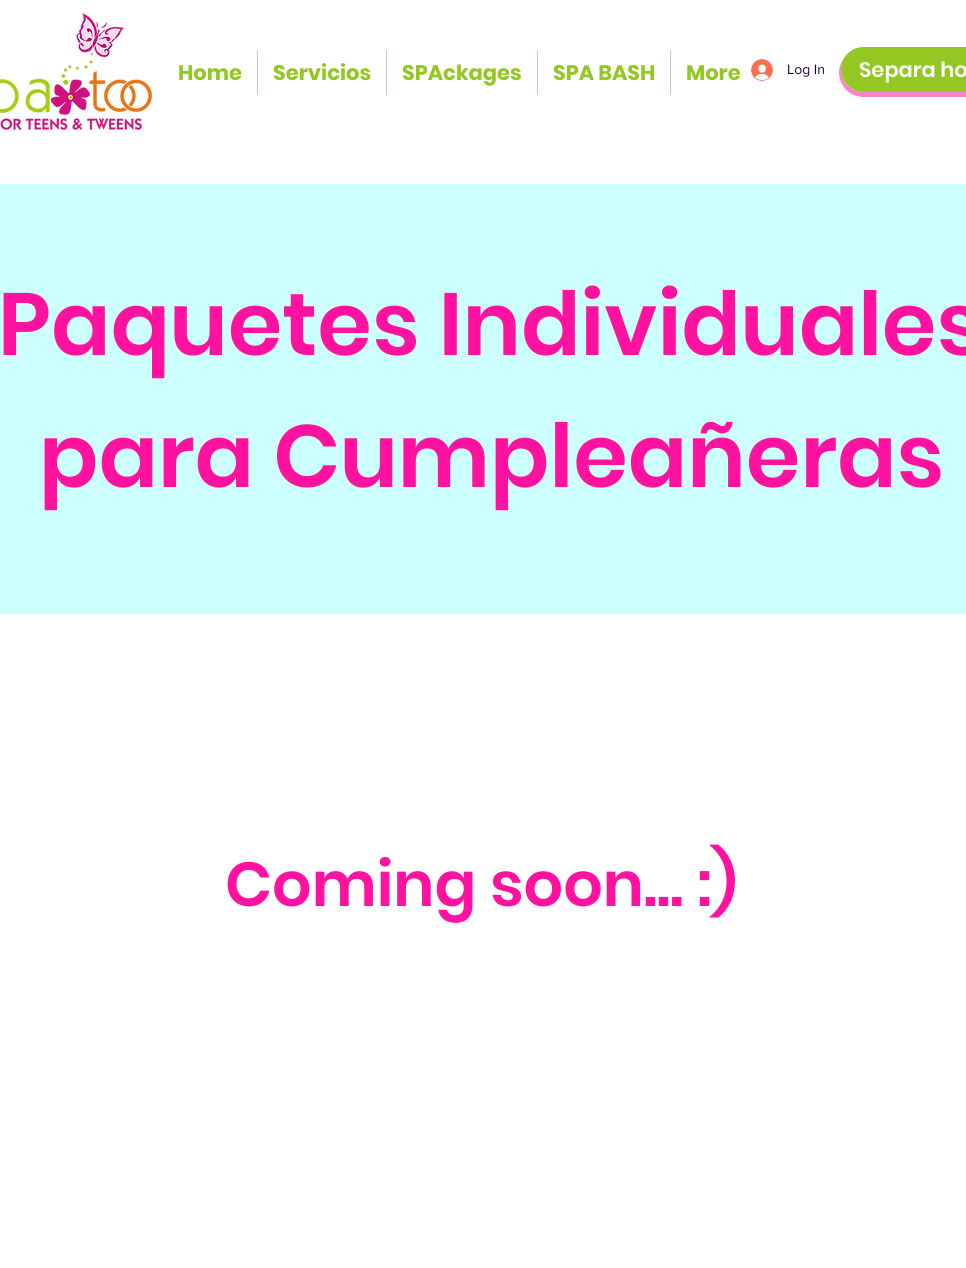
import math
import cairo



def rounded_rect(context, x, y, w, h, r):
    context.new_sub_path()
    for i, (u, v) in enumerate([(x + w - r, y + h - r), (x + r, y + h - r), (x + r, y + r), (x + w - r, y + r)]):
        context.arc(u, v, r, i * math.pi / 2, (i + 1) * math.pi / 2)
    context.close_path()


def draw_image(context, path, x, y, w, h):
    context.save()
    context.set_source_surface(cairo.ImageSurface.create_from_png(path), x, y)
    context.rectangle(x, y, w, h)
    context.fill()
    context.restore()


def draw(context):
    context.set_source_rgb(1, 1, 1)
    context.paint()
    draw_image(context, "images/1.png", 0, 13, 152, 118)
    context.set_source_rgb(216 / 255, 189 / 255, 226 / 255)
    context.rectangle(257, 50, 1, 45)
    context.fill()
    context.rectangle(386, 50, 1, 45)
    context.fill()
    context.rectangle(537, 50, 1, 45)
    context.fill()
    context.rectangle(670, 50, 1, 45)
    context.fill()
    draw_image(context, "images/2.png", 751, 59, 22, 22)
    context.set_source_rgb(1, 129 / 255, 205 / 255)
    context.new_path()
    context.move_to(846, 55)
    context.curve_to(842, 60, 839, 66, 839, 72)
    context.curve_to(839, 86, 850, 97, 864, 97)
    context.line_to(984, 97)
    context.curve_to(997, 97, 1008, 86, 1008, 72)
    context.curve_to(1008, 66, 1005, 60, 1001, 55)
    context.curve_to(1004, 59, 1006, 64, 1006, 70)
    context.curve_to(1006, 82, 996, 92, 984, 92)
    context.line_to(864, 92)
    context.curve_to(851, 92, 841, 82, 841, 70)
    context.curve_to(841, 64, 843, 59, 846, 55)
    context.close_path()
    context.fill()
    context.set_source_rgb(147 / 255, 199 / 255, 34 / 255)
    rounded_rect(context, 841, 47, 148, 45, 22.5)
    context.fill()
    context.set_source_rgb(205 / 255, 1, 1)
    context.rectangle(0, 184, 966, 430)
    context.fill()
    context.select_font_face("Poppins", cairo.FontSlant.NORMAL, cairo.FontWeight.BOLD)
    context.set_font_size(21)
    context.set_source_rgb(147 / 255, 199 / 255, 34 / 255)
    context.move_to(178, 80)
    context.show_text("Home")
    context.move_to(273, 80)
    context.show_text("Servicios")
    context.move_to(402, 80)
    context.show_text("SPAckages")
    context.move_to(553, 80)
    context.show_text("SPA BASH")
    context.move_to(686, 80)
    context.show_text("More")
    context.select_font_face("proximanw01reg")
    context.set_font_size(14)
    context.set_source_rgb(30 / 255, 0, 74 / 255)
    context.move_to(787, 74)
    context.show_text("Log In")
    context.select_font_face("Poppins SemiBold")
    context.set_font_size(21)
    context.set_source_rgb(1, 1, 1)
    context.move_to(859, 77)
    context.show_text("Separa ho")
    context.set_font_size(88)
    context.set_source_rgb(1, 18 / 255, 160 / 255)
    context.move_to(-2, 355)
    context.show_text("Paquetes Individuales")
    context.move_to(39, 487)
    context.show_text("para Cumpleañeras")
    context.set_font_size(62)
    context.move_to(225, 906)
    context.show_text("Coming soon... :)")


surface = cairo.ImageSurface(cairo.Format.RGB24, 966, 1268)
context = cairo.Context(surface)
options = cairo.FontOptions()
options.set_hint_metrics(cairo.HintMetrics.OFF)
options.set_hint_style(cairo.HintStyle.NONE)
context.set_font_options(options)
context.set_miter_limit(4)
draw(context)
surface.write_to_png("out.png")
